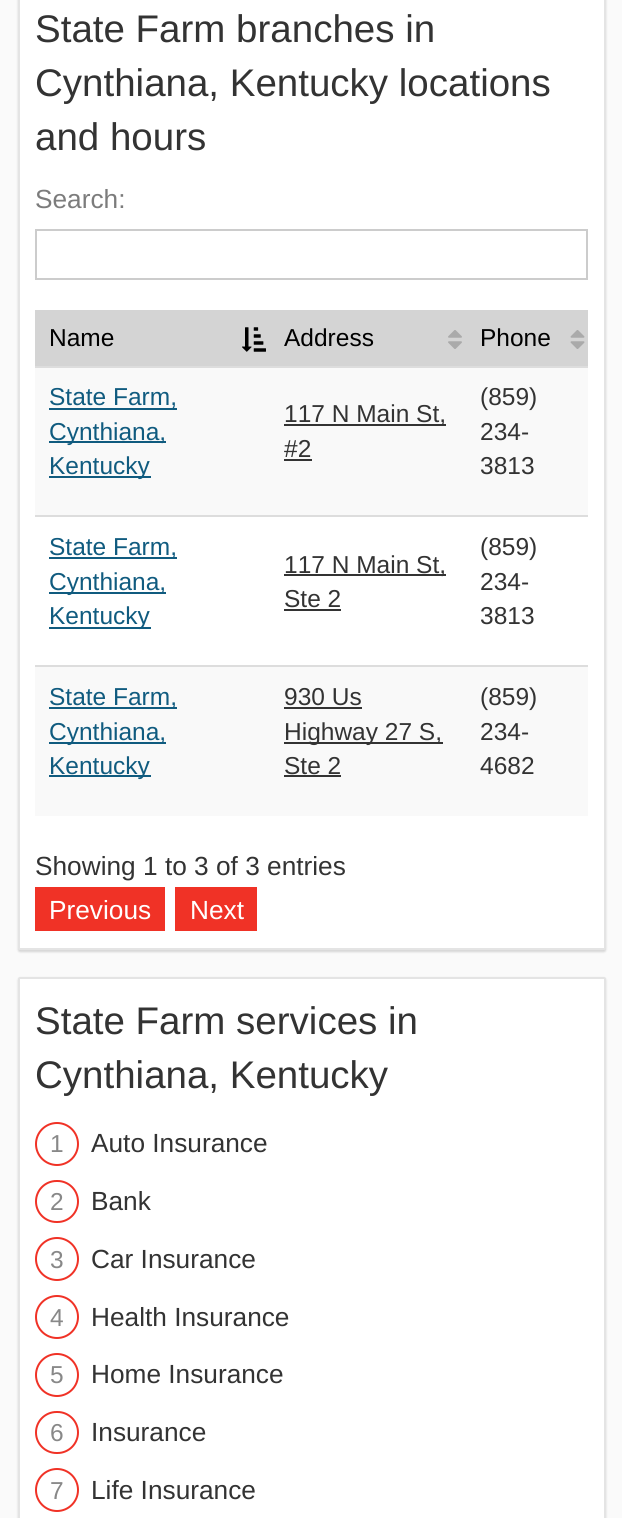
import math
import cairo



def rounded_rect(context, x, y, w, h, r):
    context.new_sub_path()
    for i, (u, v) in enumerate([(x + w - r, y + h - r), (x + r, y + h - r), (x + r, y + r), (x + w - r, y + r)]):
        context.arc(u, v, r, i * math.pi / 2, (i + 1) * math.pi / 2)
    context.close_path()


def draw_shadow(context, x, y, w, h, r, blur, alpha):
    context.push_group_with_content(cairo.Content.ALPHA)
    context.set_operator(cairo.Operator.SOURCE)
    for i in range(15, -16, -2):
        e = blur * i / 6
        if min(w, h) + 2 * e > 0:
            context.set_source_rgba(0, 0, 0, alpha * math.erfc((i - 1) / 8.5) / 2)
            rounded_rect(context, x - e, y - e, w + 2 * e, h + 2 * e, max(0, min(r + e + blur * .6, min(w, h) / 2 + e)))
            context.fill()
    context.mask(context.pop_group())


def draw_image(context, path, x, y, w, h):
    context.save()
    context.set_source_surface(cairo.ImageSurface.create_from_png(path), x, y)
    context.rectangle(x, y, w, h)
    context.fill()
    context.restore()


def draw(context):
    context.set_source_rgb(250 / 255, 250 / 255, 250 / 255)
    context.paint()
    context.set_source_rgb(0, 0, 0)
    draw_shadow(context, 18, -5, 588, 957, 2, 1, 0.15)
    context.set_source_rgb(1, 1, 1)
    rounded_rect(context, 19, -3, 586, 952, 1)
    context.fill_preserve()
    context.set_source_rgb(228 / 255, 228 / 255, 228 / 255)
    context.stroke()
    context.rectangle(36, 230, 551, 49)
    context.set_source_rgb(204 / 255, 204 / 255, 204 / 255)
    context.stroke()
    context.set_source_rgb(212 / 255, 212 / 255, 212 / 255)
    context.rectangle(35, 310, 553, 56)
    context.fill()
    draw_image(context, "images/1.png", 242, 327, 24, 25)
    draw_image(context, "images/2.png", 448, 330, 14, 19)
    draw_image(context, "images/3.png", 570, 330, 15, 19)
    context.set_source_rgb(249 / 255, 249 / 255, 249 / 255)
    context.rectangle(35, 368, 553, 147)
    context.fill()
    context.set_source_rgb(221 / 255, 221 / 255, 221 / 255)
    context.rectangle(35, 366, 553, 2)
    context.fill()
    context.set_source_rgb(16 / 255, 91 / 255, 127 / 255)
    context.rectangle(49, 408, 128, 2)
    context.fill()
    context.rectangle(49, 441, 117, 2)
    context.fill()
    context.rectangle(49, 476, 102, 2)
    context.fill()
    context.set_source_rgb(51 / 255, 51 / 255, 51 / 255)
    context.rectangle(284, 424, 162, 2)
    context.fill()
    context.rectangle(284, 459, 28, 2)
    context.fill()
    context.set_source_rgb(221 / 255, 221 / 255, 221 / 255)
    context.rectangle(35, 515, 553, 2)
    context.fill()
    context.set_source_rgb(16 / 255, 91 / 255, 127 / 255)
    context.rectangle(49, 557, 128, 2)
    context.fill()
    context.rectangle(49, 592, 117, 2)
    context.fill()
    context.rectangle(49, 627, 102, 2)
    context.fill()
    context.set_source_rgb(51 / 255, 51 / 255, 51 / 255)
    context.rectangle(284, 574, 162, 2)
    context.fill()
    context.rectangle(284, 609, 57, 2)
    context.fill()
    context.set_source_rgb(249 / 255, 249 / 255, 249 / 255)
    context.rectangle(35, 667, 553, 149)
    context.fill()
    context.set_source_rgb(221 / 255, 221 / 255, 221 / 255)
    context.rectangle(35, 665, 553, 2)
    context.fill()
    context.set_source_rgb(16 / 255, 91 / 255, 127 / 255)
    context.rectangle(49, 707, 128, 2)
    context.fill()
    context.rectangle(49, 742, 117, 2)
    context.fill()
    context.rectangle(49, 775, 102, 2)
    context.fill()
    context.set_source_rgb(51 / 255, 51 / 255, 51 / 255)
    context.rectangle(284, 707, 78, 2)
    context.fill()
    context.rectangle(284, 742, 159, 2)
    context.fill()
    context.rectangle(284, 775, 57, 2)
    context.fill()
    context.set_source_rgb(240 / 255, 50 / 255, 38 / 255)
    context.rectangle(35, 887, 130, 44)
    context.fill()
    context.rectangle(175, 887, 82, 44)
    context.fill()
    context.set_source_rgb(0, 0, 0)
    draw_shadow(context, 18, 978, 588, 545, 2, 1, 0.15)
    context.set_source_rgb(1, 1, 1)
    rounded_rect(context, 19, 978, 586, 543, 1)
    context.fill_preserve()
    context.set_source_rgb(228 / 255, 228 / 255, 228 / 255)
    context.stroke()
    context.arc(57, 1144, 21, 0, 2 * math.pi)
    context.set_source_rgb(240 / 255, 50 / 255, 38 / 255)
    context.stroke()
    rounded_rect(context, 36, 1181, 42, 41, 20.5)
    context.stroke()
    context.arc(57, 1259, 21, 0, 2 * math.pi)
    context.stroke()
    context.arc(57, 1317, 21, 0, 2 * math.pi)
    context.stroke()
    context.arc(57, 1375, 21, 0, 2 * math.pi)
    context.stroke()
    rounded_rect(context, 36, 1412, 42, 41, 20.5)
    context.stroke()
    context.arc(57, 1490, 21, 0, 2 * math.pi)
    context.stroke()
    context.select_font_face("Liberation Sans")
    context.set_font_size(38.5)
    context.set_source_rgb(51 / 255, 51 / 255, 51 / 255)
    context.move_to(35, 42)
    context.show_text("State Farm branches in")
    context.move_to(35, 96)
    context.show_text("Cynthiana, Kentucky locations")
    context.move_to(35, 150)
    context.show_text("and hours")
    context.set_font_size(26.25)
    context.set_source_rgb(124 / 255, 124 / 255, 124 / 255)
    context.move_to(35, 208)
    context.show_text("Search:")
    context.set_font_size(24.5)
    context.set_source_rgb(0, 0, 0)
    context.move_to(49, 346)
    context.show_text("Name")
    context.move_to(284, 346)
    context.show_text("Address")
    context.move_to(480, 346)
    context.show_text("Phone")
    context.set_source_rgb(16 / 255, 91 / 255, 127 / 255)
    context.move_to(49, 405)
    context.show_text("State Farm,")
    context.move_to(49, 440)
    context.show_text("Cynthiana,")
    context.move_to(49, 474)
    context.show_text("Kentucky")
    context.set_source_rgb(51 / 255, 51 / 255, 51 / 255)
    context.move_to(284, 422)
    context.show_text("117 N Main St,")
    context.move_to(284, 457)
    context.show_text("#2")
    context.move_to(480, 405)
    context.show_text("(859)")
    context.move_to(480, 440)
    context.show_text("234-")
    context.move_to(480, 474)
    context.show_text("3813")
    context.set_source_rgb(16 / 255, 91 / 255, 127 / 255)
    context.move_to(49, 555)
    context.show_text("State Farm,")
    context.move_to(49, 590)
    context.show_text("Cynthiana,")
    context.move_to(49, 624)
    context.show_text("Kentucky")
    context.set_source_rgb(51 / 255, 51 / 255, 51 / 255)
    context.move_to(284, 573)
    context.show_text("117 N Main St,")
    context.move_to(284, 607)
    context.show_text("Ste 2")
    context.move_to(480, 555)
    context.show_text("(859)")
    context.move_to(480, 590)
    context.show_text("234-")
    context.move_to(480, 624)
    context.show_text("3813")
    context.set_source_rgb(16 / 255, 91 / 255, 127 / 255)
    context.move_to(49, 705)
    context.show_text("State Farm,")
    context.move_to(49, 740)
    context.show_text("Cynthiana,")
    context.move_to(49, 774)
    context.show_text("Kentucky")
    context.set_source_rgb(51 / 255, 51 / 255, 51 / 255)
    context.move_to(284, 705)
    context.show_text("930 Us")
    context.move_to(284, 740)
    context.show_text("Highway 27 S,")
    context.move_to(284, 774)
    context.show_text("Ste 2")
    context.move_to(480, 705)
    context.show_text("(859)")
    context.move_to(480, 740)
    context.show_text("234-")
    context.move_to(480, 774)
    context.show_text("4682")
    context.set_font_size(26.25)
    context.move_to(35, 875)
    context.show_text("Showing 1 to 3 of 3 entries")
    context.set_source_rgb(1, 1, 1)
    context.move_to(49, 919)
    context.show_text("Previous")
    context.move_to(190, 919)
    context.show_text("Next")
    context.set_font_size(38.5)
    context.set_source_rgb(51 / 255, 51 / 255, 51 / 255)
    context.move_to(35, 1034)
    context.show_text("State Farm services in")
    context.move_to(35, 1088)
    context.show_text("Cynthiana, Kentucky")
    context.set_font_size(24.5)
    context.set_source_rgb(136 / 255, 136 / 255, 136 / 255)
    context.move_to(50, 1152)
    context.show_text("1")
    context.set_font_size(26.25)
    context.set_source_rgb(51 / 255, 51 / 255, 51 / 255)
    context.move_to(91, 1152)
    context.show_text("Auto Insurance")
    context.set_font_size(24.5)
    context.set_source_rgb(136 / 255, 136 / 255, 136 / 255)
    context.move_to(50, 1210)
    context.show_text("2")
    context.set_font_size(26.25)
    context.set_source_rgb(51 / 255, 51 / 255, 51 / 255)
    context.move_to(91, 1210)
    context.show_text("Bank")
    context.set_font_size(24.5)
    context.set_source_rgb(136 / 255, 136 / 255, 136 / 255)
    context.move_to(50, 1268)
    context.show_text("3")
    context.set_font_size(26.25)
    context.set_source_rgb(51 / 255, 51 / 255, 51 / 255)
    context.move_to(91, 1268)
    context.show_text("Car Insurance")
    context.set_font_size(24.5)
    context.set_source_rgb(136 / 255, 136 / 255, 136 / 255)
    context.move_to(50, 1326)
    context.show_text("4")
    context.set_font_size(26.25)
    context.set_source_rgb(51 / 255, 51 / 255, 51 / 255)
    context.move_to(91, 1326)
    context.show_text("Health Insurance")
    context.set_font_size(24.5)
    context.set_source_rgb(136 / 255, 136 / 255, 136 / 255)
    context.move_to(50, 1383)
    context.show_text("5")
    context.set_font_size(26.25)
    context.set_source_rgb(51 / 255, 51 / 255, 51 / 255)
    context.move_to(91, 1383)
    context.show_text("Home Insurance")
    context.set_font_size(24.5)
    context.set_source_rgb(136 / 255, 136 / 255, 136 / 255)
    context.move_to(50, 1441)
    context.show_text("6")
    context.set_font_size(26.25)
    context.set_source_rgb(51 / 255, 51 / 255, 51 / 255)
    context.move_to(91, 1441)
    context.show_text("Insurance")
    context.set_font_size(24.5)
    context.set_source_rgb(136 / 255, 136 / 255, 136 / 255)
    context.move_to(50, 1499)
    context.show_text("7")
    context.set_font_size(26.25)
    context.set_source_rgb(51 / 255, 51 / 255, 51 / 255)
    context.move_to(91, 1499)
    context.show_text("Life Insurance")


surface = cairo.ImageSurface(cairo.Format.RGB24, 622, 1518)
context = cairo.Context(surface)
options = cairo.FontOptions()
options.set_hint_metrics(cairo.HintMetrics.OFF)
options.set_hint_style(cairo.HintStyle.NONE)
context.set_font_options(options)
context.set_miter_limit(4)
draw(context)
surface.write_to_png("out.png")
